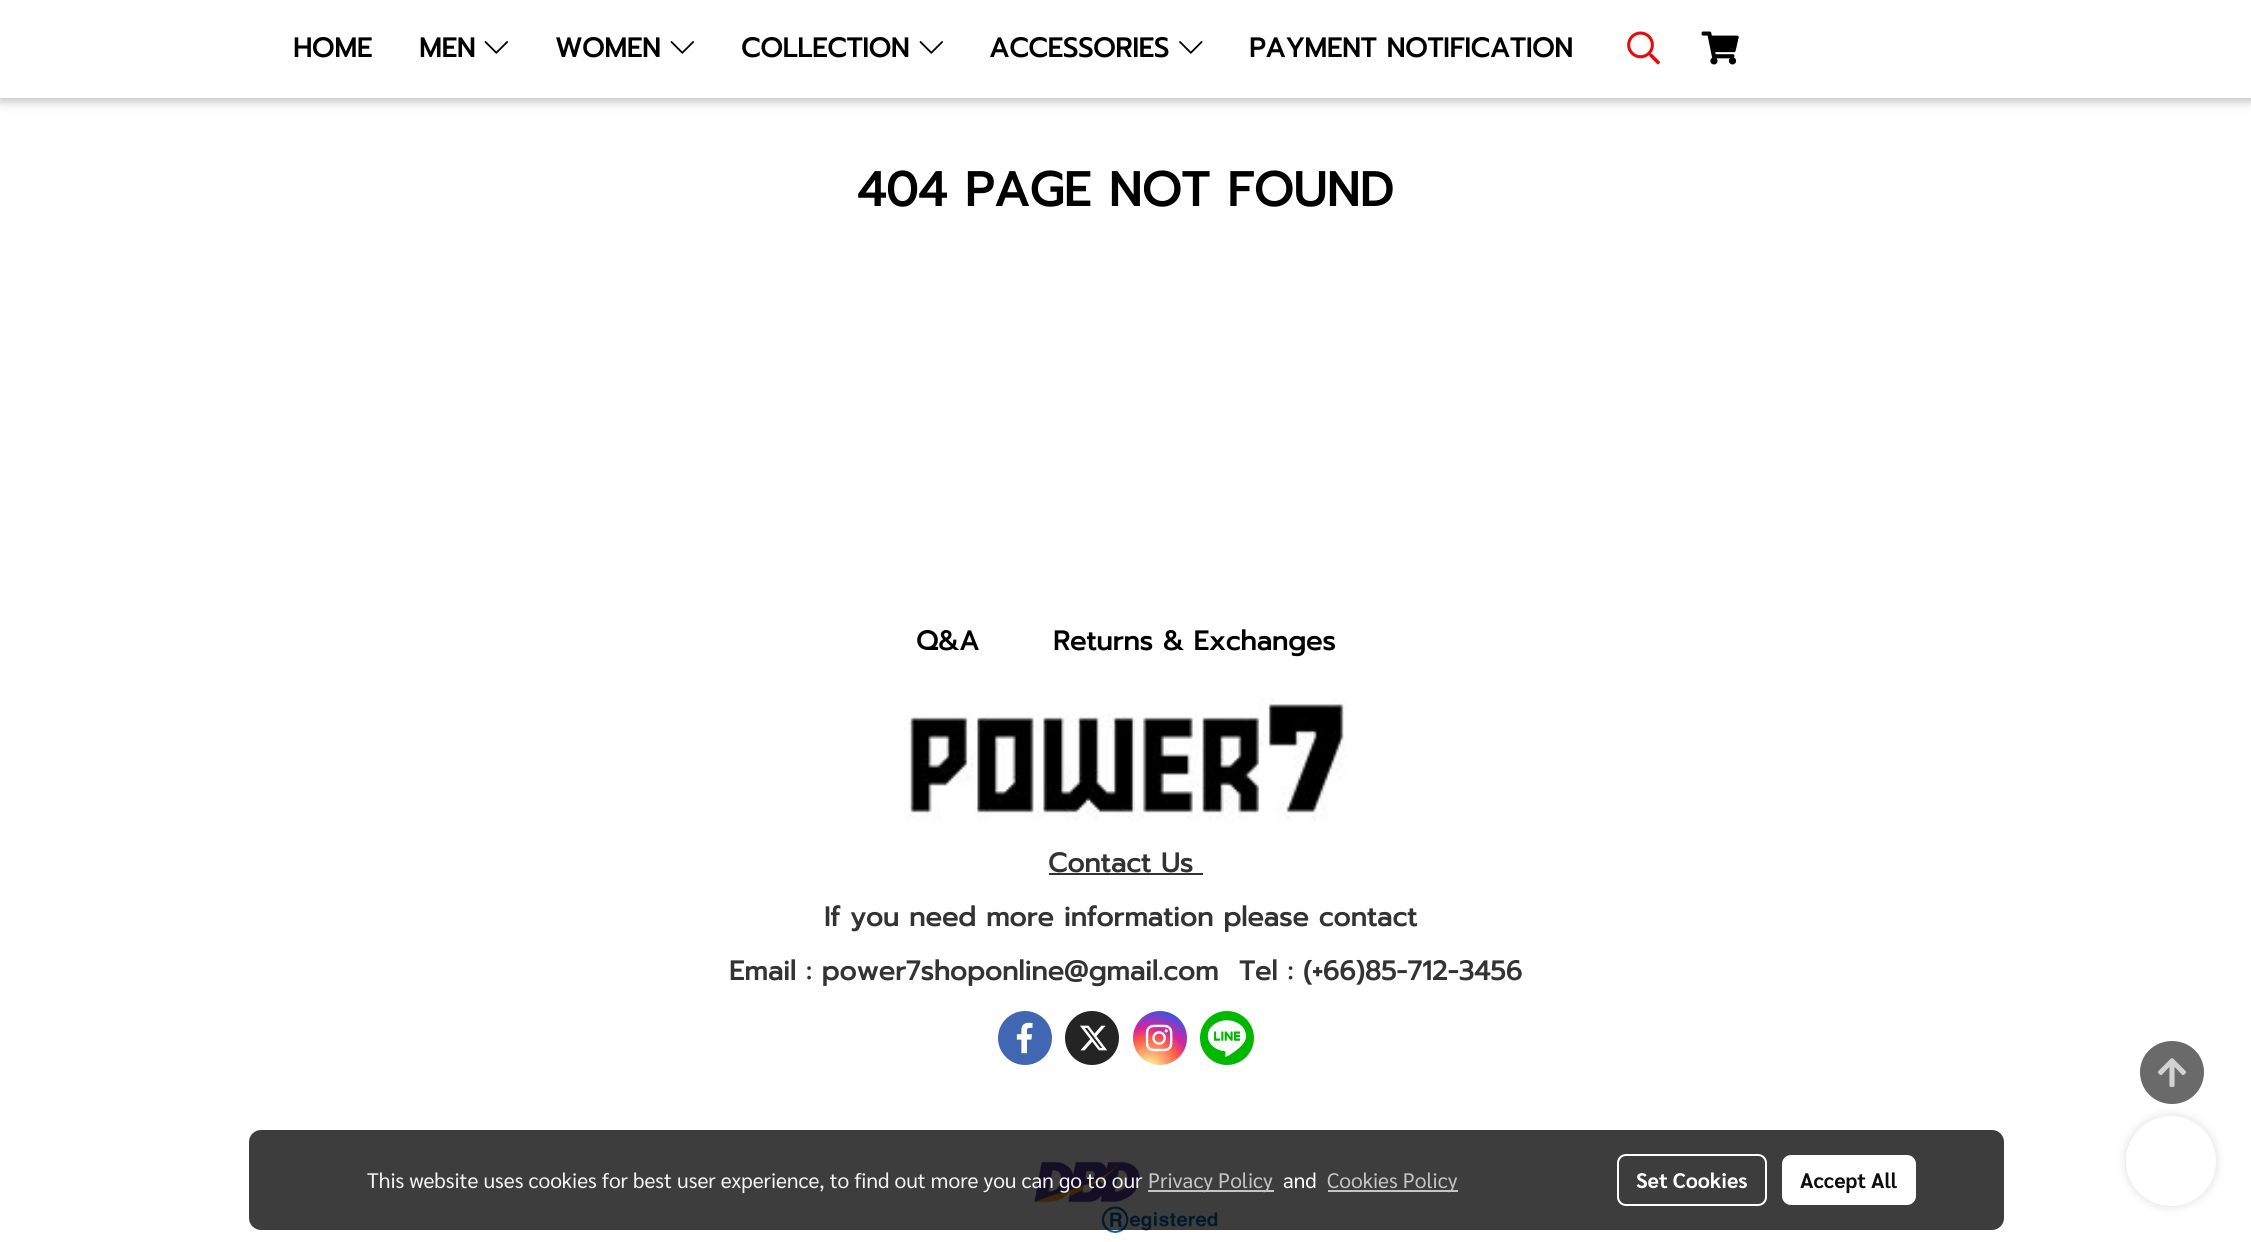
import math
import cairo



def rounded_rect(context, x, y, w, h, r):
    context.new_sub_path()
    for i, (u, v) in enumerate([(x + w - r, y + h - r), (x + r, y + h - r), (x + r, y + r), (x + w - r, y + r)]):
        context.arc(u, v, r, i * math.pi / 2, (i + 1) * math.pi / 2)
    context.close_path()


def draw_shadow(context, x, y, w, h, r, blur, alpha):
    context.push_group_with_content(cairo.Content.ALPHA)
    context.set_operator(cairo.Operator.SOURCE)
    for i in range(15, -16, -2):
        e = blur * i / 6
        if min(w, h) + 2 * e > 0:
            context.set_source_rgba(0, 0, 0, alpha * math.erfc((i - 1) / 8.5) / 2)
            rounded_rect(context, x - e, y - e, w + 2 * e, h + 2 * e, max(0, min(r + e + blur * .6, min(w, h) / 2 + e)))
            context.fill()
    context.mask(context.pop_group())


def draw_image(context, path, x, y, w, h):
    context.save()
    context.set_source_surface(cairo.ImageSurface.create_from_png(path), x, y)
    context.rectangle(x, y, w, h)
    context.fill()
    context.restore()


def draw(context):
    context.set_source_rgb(1, 1, 1)
    context.paint()
    context.set_source_rgb(0, 0, 0)
    draw_shadow(context, 0, 3, 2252, 98, 0, 7.5, 0.12)
    draw_shadow(context, 0, 3, 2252, 98, 0, 4, 0.16)
    context.set_source_rgb(1, 1, 1)
    context.rectangle(0, 0, 2251, 98)
    context.fill()
    draw_image(context, "images/1.png", 484, 41, 24, 13)
    draw_image(context, "images/1.png", 670, 41, 24, 13)
    draw_image(context, "images/1.png", 919, 41, 24, 13)
    draw_image(context, "images/2.png", 1179, 41, 24, 13)
    draw_image(context, "images/3.png", 1627, 31, 34, 34)
    draw_image(context, "images/4.png", 1701, 31, 38, 34)
    draw_image(context, "images/5.png", 904, 698, 443, 123)
    context.set_source_rgb(51 / 255, 51 / 255, 51 / 255)
    context.rectangle(1049, 873, 154, 2)
    context.fill()
    context.set_source_rgb(66 / 255, 103 / 255, 178 / 255)
    context.arc(1025, 1038, 27, 0, 2 * math.pi)
    context.fill()
    draw_image(context, "images/6.png", 1016, 1022, 17, 32)
    context.set_source_rgb(36 / 255, 36 / 255, 36 / 255)
    context.arc(1092, 1038, 27, 0, 2 * math.pi)
    context.fill()
    draw_image(context, "images/7.png", 1080, 1025, 28, 26)
    gradient = cairo.RadialGradient(1149, 1069, 0, 1149, 1069, 69)
    gradient.add_color_stop_rgba(0, 253 / 255, 244 / 255, 151 / 255, 1)
    gradient.add_color_stop_rgba(0.05, 253 / 255, 244 / 255, 151 / 255, 1)
    gradient.add_color_stop_rgba(0.45, 253 / 255, 89 / 255, 73 / 255, 1)
    gradient.add_color_stop_rgba(0.6, 214 / 255, 36 / 255, 159 / 255, 1)
    gradient.add_color_stop_rgba(0.9, 40 / 255, 90 / 255, 235 / 255, 1)
    context.set_source(gradient)
    context.arc(1160, 1038, 27, 0, 2 * math.pi)
    context.fill()
    draw_image(context, "images/8.png", 1145, 1024, 28, 28)
    context.set_source_rgb(0, 184 / 255, 0)
    context.arc(1227, 1038, 27, 0, 2 * math.pi)
    context.fill()
    draw_image(context, "images/9.png", 1207, 1011, 39, 54)
    draw_image(context, "images/10.png", 1034, 1161, 184, 72)
    context.set_source_rgb(0, 0, 0)
    draw_shadow(context, 2126, 1116, 90, 90, 45, 5, 0.14)
    context.set_source_rgb(107 / 255, 106 / 255, 106 / 255)
    context.new_path()
    context.move_to(2172, 1041)
    context.curve_to(2154, 1041, 2140, 1055, 2140, 1072)
    context.curve_to(2140, 1090, 2154, 1104, 2172, 1104)
    context.curve_to(2190, 1104, 2204, 1090, 2204, 1072)
    context.curve_to(2204, 1055, 2190, 1041, 2172, 1041)
    context.close_path()
    context.fill()
    draw_image(context, "images/11.png", 2158, 1058, 28, 29)
    context.set_source_rgba(0, 0, 0, 0.76)
    rounded_rect(context, 249, 1130, 1755, 100, 12)
    context.fill()
    context.set_source_rgb(197 / 255, 197 / 255, 197 / 255)
    context.rectangle(1148, 1190, 126, 2)
    context.fill()
    context.rectangle(1328, 1190, 130, 2)
    context.fill()
    rounded_rect(context, 1618, 1155, 148, 50, 8)
    context.set_source_rgb(1, 1, 1)
    context.stroke()
    rounded_rect(context, 1782, 1155, 134, 50, 9)
    context.fill()
    context.arc(2171, 1161, 45, 0, 2 * math.pi)
    context.fill()
    context.select_font_face("Prompt", cairo.FontSlant.NORMAL, cairo.FontWeight.BOLD)
    context.set_font_size(27)
    context.set_source_rgb(0, 0, 0)
    context.move_to(293, 57)
    context.show_text("HOME")
    context.move_to(419, 57)
    context.show_text("MEN")
    context.move_to(555, 57)
    context.show_text("WOMEN")
    context.move_to(741, 57)
    context.show_text("COLLECTION")
    context.move_to(989, 57)
    context.show_text("ACCESSORIES")
    context.move_to(1249, 57)
    context.show_text("PAYMENT NOTIFICATION")
    context.set_font_size(48)
    context.move_to(857, 206)
    context.show_text("404 PAGE NOT FOUND")
    context.set_font_size(27)
    context.move_to(916, 650)
    context.show_text("Q&A")
    context.move_to(1053, 650)
    context.show_text("Returns & Exchanges")
    context.set_source_rgb(51 / 255, 51 / 255, 51 / 255)
    context.move_to(1048, 872)
    context.show_text("Contact Us")
    context.move_to(824, 926)
    context.show_text("If you need more information please contact")
    context.move_to(729, 980)
    context.show_text("Email : power7shoponline@gmail.com")
    context.move_to(1239, 980)
    context.show_text("Tel : (+66)85-712-3456")
    context.select_font_face("Sarabun")
    context.set_font_size(21)
    context.set_source_rgb(245 / 255, 245 / 255, 245 / 255)
    context.move_to(367, 1188)
    context.show_text("This website uses cookies for best user experience, to find out more you can go to our")
    context.set_source_rgb(197 / 255, 197 / 255, 197 / 255)
    context.move_to(1148, 1188)
    context.show_text("Privacy Policy")
    context.set_source_rgb(1, 1, 1)
    context.move_to(1283, 1188)
    context.show_text("and")
    context.set_source_rgb(197 / 255, 197 / 255, 197 / 255)
    context.move_to(1327, 1188)
    context.show_text("Cookies Policy")
    context.select_font_face("Sarabun", cairo.FontSlant.NORMAL, cairo.FontWeight.BOLD)
    context.set_source_rgb(1, 1, 1)
    context.move_to(1636, 1188)
    context.show_text("Set Cookies")
    context.set_source_rgb(13 / 255, 13 / 255, 13 / 255)
    context.move_to(1800, 1188)
    context.show_text("Accept All")


surface = cairo.ImageSurface(cairo.Format.RGB24, 2251, 1242)
context = cairo.Context(surface)
options = cairo.FontOptions()
options.set_hint_metrics(cairo.HintMetrics.OFF)
options.set_hint_style(cairo.HintStyle.NONE)
context.set_font_options(options)
context.set_miter_limit(4)
draw(context)
surface.write_to_png("out.png")
